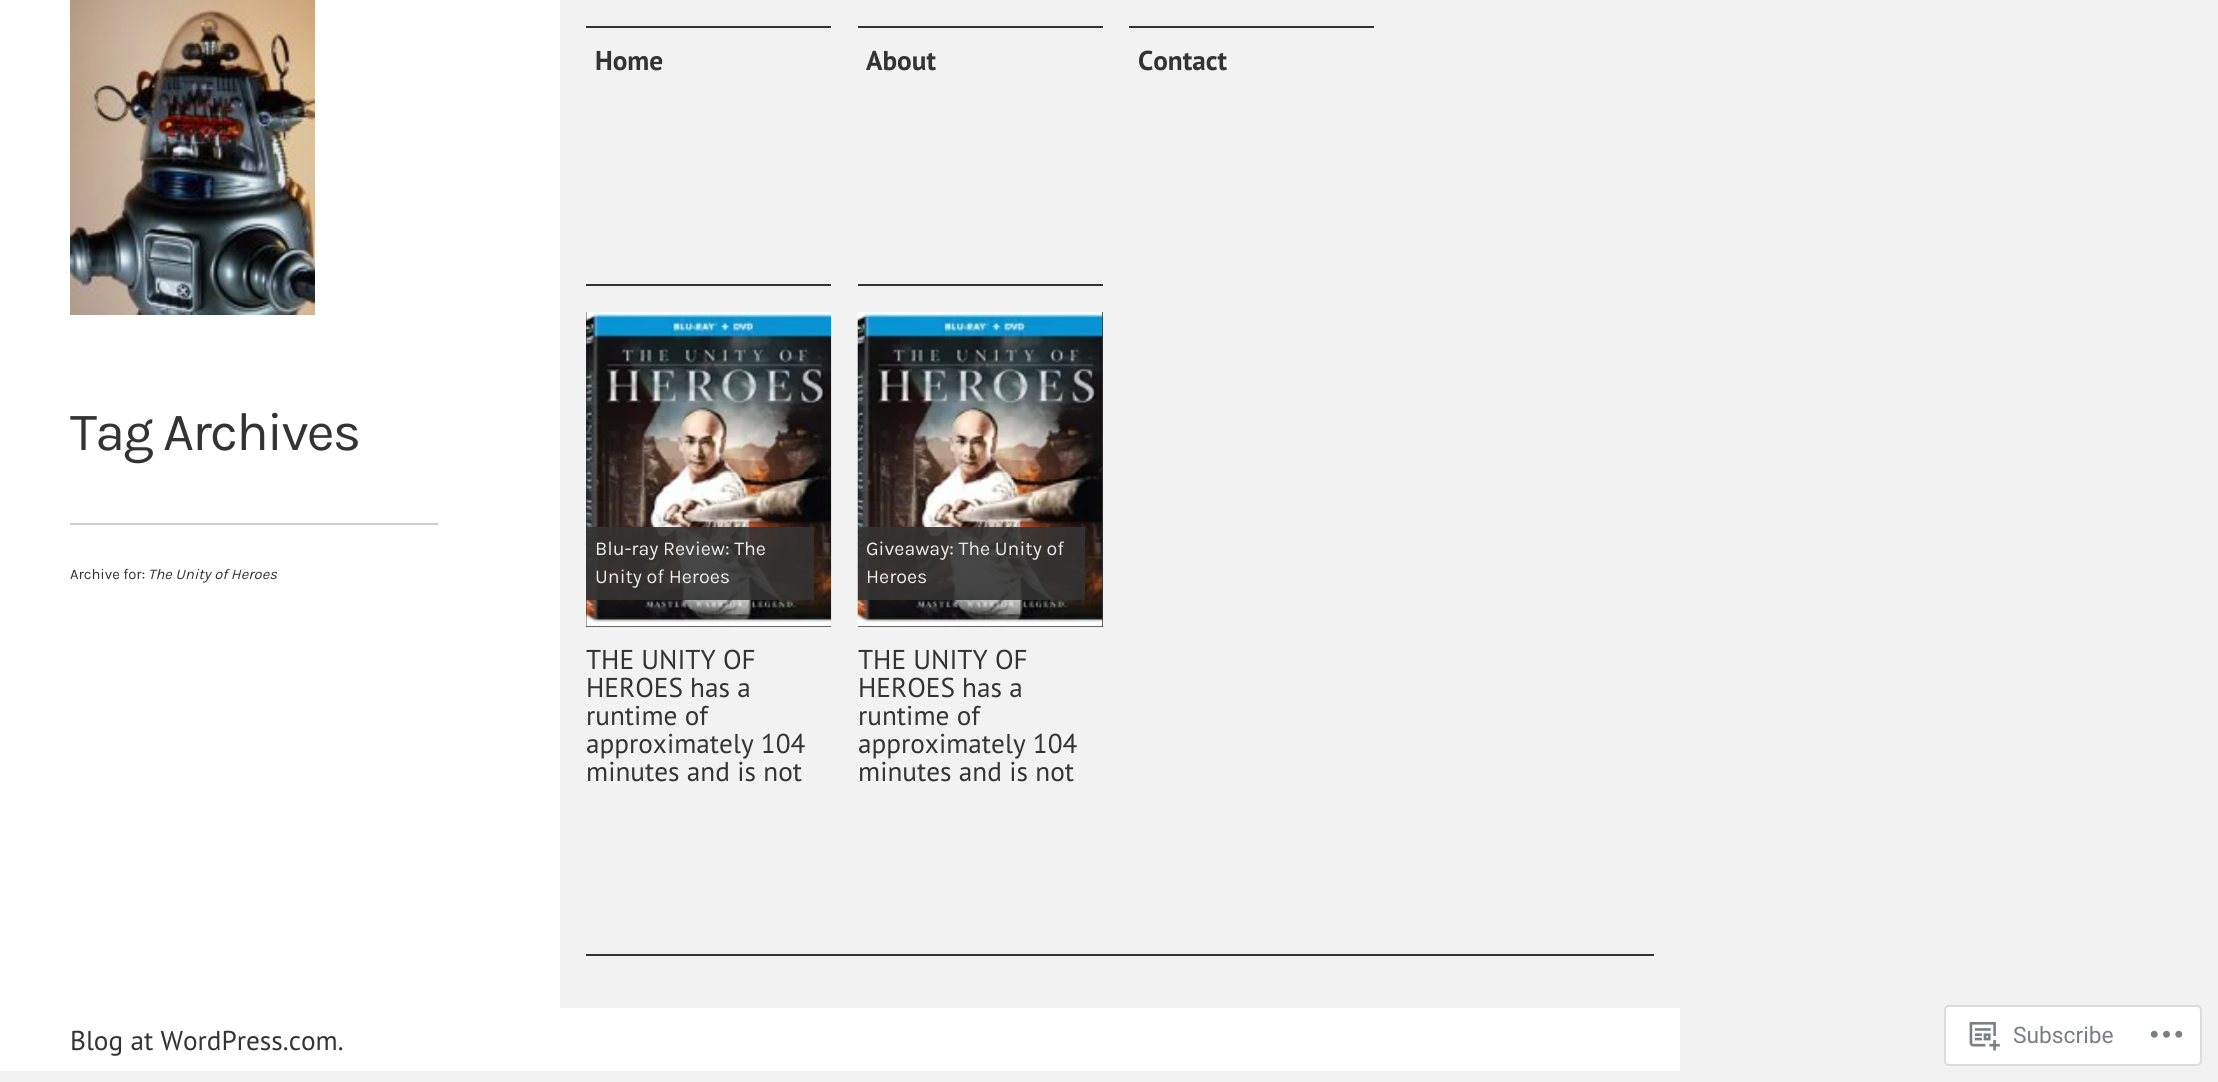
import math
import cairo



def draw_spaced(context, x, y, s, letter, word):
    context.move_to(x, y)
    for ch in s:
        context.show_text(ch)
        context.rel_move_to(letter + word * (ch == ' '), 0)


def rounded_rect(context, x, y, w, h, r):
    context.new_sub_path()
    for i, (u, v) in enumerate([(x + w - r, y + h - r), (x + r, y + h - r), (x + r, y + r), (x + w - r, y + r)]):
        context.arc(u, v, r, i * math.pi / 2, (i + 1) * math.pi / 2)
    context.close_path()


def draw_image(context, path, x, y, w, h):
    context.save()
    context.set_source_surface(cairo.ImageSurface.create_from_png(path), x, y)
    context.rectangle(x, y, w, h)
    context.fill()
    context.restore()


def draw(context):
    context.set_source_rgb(242 / 255, 242 / 255, 242 / 255)
    context.paint()
    context.set_source_rgb(1, 1, 1)
    context.rectangle(0, 0, 560, 1008)
    context.fill()
    draw_image(context, "images/1.png", 70, 0, 245, 315)
    context.set_source_rgb(204 / 255, 204 / 255, 204 / 255)
    context.rectangle(70, 523, 368, 2)
    context.fill()
    context.set_source_rgb(51 / 255, 51 / 255, 51 / 255)
    context.rectangle(586, 26, 245, 2)
    context.fill()
    context.rectangle(858, 26, 245, 2)
    context.fill()
    context.rectangle(1129, 26, 245, 2)
    context.fill()
    context.rectangle(586, 284, 245, 2)
    context.fill()
    context.rectangle(586, 312, 245, 315)
    context.fill()
    draw_image(context, "images/2.png", 586, 312, 246, 315)
    context.set_source_rgba(51 / 255, 51 / 255, 51 / 255, 0.9)
    context.rectangle(586, 527, 228, 73)
    context.fill()
    context.set_source_rgb(51 / 255, 51 / 255, 51 / 255)
    context.rectangle(858, 284, 245, 2)
    context.fill()
    context.rectangle(858, 312, 245, 315)
    context.fill()
    draw_image(context, "images/3.png", 857, 312, 246, 315)
    context.set_source_rgba(51 / 255, 51 / 255, 51 / 255, 0.9)
    context.rectangle(858, 527, 227, 73)
    context.fill()
    context.set_source_rgb(51 / 255, 51 / 255, 51 / 255)
    context.rectangle(586, 954, 1068, 2)
    context.fill()
    context.set_source_rgb(1, 1, 1)
    context.rectangle(0, 1008, 1680, 63)
    context.fill()
    rounded_rect(context, 1945, 1006, 256, 59, 4)
    context.fill_preserve()
    context.set_source_rgb(220 / 255, 220 / 255, 222 / 255)
    context.stroke()
    draw_image(context, "images/4.png", 1969, 1022, 31, 29)
    draw_image(context, "images/5.png", 2150, 1030, 33, 8)
    context.select_font_face("Karla")
    context.set_font_size(54)
    context.set_source_rgb(51 / 255, 51 / 255, 51 / 255)
    draw_spaced(context, 70, 450, "Tag Archives", -1.75, 0)
    context.set_font_size(14.75)
    context.move_to(70, 579)
    context.show_text("Archive for:")
    context.select_font_face("Karla", cairo.FontSlant.ITALIC)
    context.move_to(148, 579)
    context.show_text("The Unity of Heroes")
    context.select_font_face("PT Sans", cairo.FontSlant.NORMAL, cairo.FontWeight.BOLD)
    context.set_font_size(27.25)
    context.move_to(595, 70)
    context.show_text("Home")
    context.move_to(866, 70)
    context.show_text("About")
    context.move_to(1138, 70)
    context.show_text("Contact")
    context.select_font_face("Karla")
    context.set_font_size(19.6)
    context.set_source_rgb(235 / 255, 235 / 255, 235 / 255)
    context.move_to(595, 555)
    context.show_text("Blu-ray Review: The")
    context.move_to(595, 583)
    context.show_text("Unity of Heroes")
    context.select_font_face("PT Sans")
    context.set_font_size(27.25)
    context.set_source_rgb(51 / 255, 51 / 255, 51 / 255)
    context.move_to(586, 669)
    context.show_text("THE UNITY OF")
    context.move_to(586, 697)
    context.show_text("HEROES has a")
    context.move_to(586, 725)
    context.show_text("runtime of")
    context.move_to(586, 753)
    context.show_text("approximately 104")
    context.move_to(586, 781)
    context.show_text("minutes and is not")
    context.select_font_face("Karla")
    context.set_font_size(19.6)
    context.set_source_rgb(235 / 255, 235 / 255, 235 / 255)
    context.move_to(866, 555)
    context.show_text("Giveaway: The Unity of")
    context.move_to(866, 583)
    context.show_text("Heroes")
    context.select_font_face("PT Sans")
    context.set_font_size(27.25)
    context.set_source_rgb(51 / 255, 51 / 255, 51 / 255)
    context.move_to(858, 669)
    context.show_text("THE UNITY OF")
    context.move_to(858, 697)
    context.show_text("HEROES has a")
    context.move_to(858, 725)
    context.show_text("runtime of")
    context.move_to(858, 753)
    context.show_text("approximately 104")
    context.move_to(858, 781)
    context.show_text("minutes and is not")
    context.move_to(70, 1050)
    context.show_text("Blog at WordPress.com.")
    context.select_font_face("Roboto")
    context.set_font_size(22.75)
    context.set_source_rgb(122 / 255, 126 / 255, 132 / 255)
    context.move_to(2013, 1043)
    context.show_text("Subscribe")


surface = cairo.ImageSurface(cairo.Format.RGB24, 2218, 1082)
context = cairo.Context(surface)
options = cairo.FontOptions()
options.set_hint_metrics(cairo.HintMetrics.OFF)
options.set_hint_style(cairo.HintStyle.NONE)
context.set_font_options(options)
context.set_miter_limit(4)
draw(context)
surface.write_to_png("out.png")
